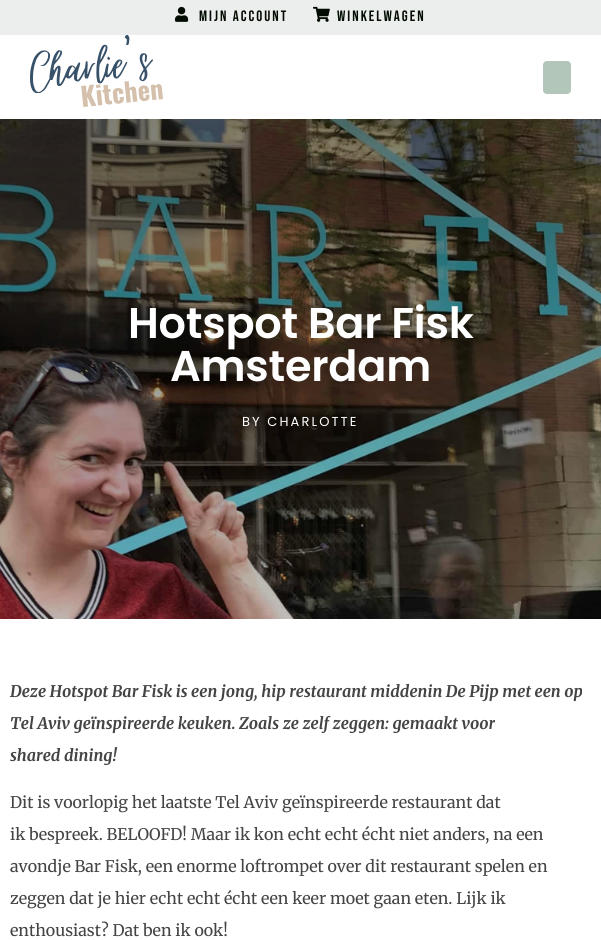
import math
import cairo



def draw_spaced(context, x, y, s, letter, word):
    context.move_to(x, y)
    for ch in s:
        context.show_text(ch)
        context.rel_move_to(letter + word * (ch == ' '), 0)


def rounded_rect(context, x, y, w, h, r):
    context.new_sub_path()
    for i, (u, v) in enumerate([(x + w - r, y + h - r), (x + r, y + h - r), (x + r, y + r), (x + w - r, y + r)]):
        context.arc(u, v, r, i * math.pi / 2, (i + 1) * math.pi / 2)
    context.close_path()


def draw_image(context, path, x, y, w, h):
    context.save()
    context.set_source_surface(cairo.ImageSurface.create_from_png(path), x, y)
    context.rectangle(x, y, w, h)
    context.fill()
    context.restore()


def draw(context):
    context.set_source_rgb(1, 1, 1)
    context.paint()
    context.set_source_rgb(236 / 255, 237 / 255, 237 / 255)
    context.rectangle(0, 0, 601, 35)
    context.fill()
    draw_image(context, "images/1.png", 175, 6, 14, 16)
    draw_image(context, "images/2.png", 313, 6, 17, 16)
    draw_image(context, "images/3.png", 30, 35, 133, 72)
    context.set_source_rgb(179 / 255, 198 / 255, 186 / 255)
    rounded_rect(context, 543, 61, 28, 33, 4)
    context.fill()
    draw_image(context, "images/4.png", 0, 119, 601, 500)
    context.select_font_face("Bebas Neue")
    context.set_font_size(15)
    context.set_source_rgb(3 / 255, 12 / 255, 2 / 255)
    draw_spaced(context, 199, 21, "MIJN ACCOUNT", 2, 0)
    draw_spaced(context, 337, 21, "WINKELWAGEN", 2, 0)
    context.select_font_face("Poppins SemiBold")
    context.set_font_size(43)
    context.set_source_rgb(1, 1, 1)
    draw_spaced(context, 128, 338, "Hotspot Bar Fisk", -0.25, 0)
    draw_spaced(context, 170, 381, "Amsterdam", -0.25, 0)
    context.select_font_face("Poppins")
    context.set_font_size(13)
    draw_spaced(context, 242, 426, "BY CHARLOTTE", 2.1, 0)
    context.select_font_face("Merriweather", cairo.FontSlant.ITALIC, cairo.FontWeight.BOLD)
    context.set_font_size(16)
    context.set_source_rgb(68 / 255, 68 / 255, 68 / 255)
    context.move_to(10, 697)
    context.show_text("Deze Hotspot Bar Fisk is een jong, hip restaurant middenin De Pijp met een op")
    context.move_to(10, 729)
    context.show_text("Tel Aviv geïnspireerde keuken. Zoals ze zelf zeggen: gemaakt voor")
    context.move_to(10, 761)
    context.show_text("shared dining!")
    context.select_font_face("Merriweather")
    context.move_to(10, 808)
    context.show_text("Dit is voorlopig het laatste Tel Aviv geïnspireerde restaurant dat")
    context.move_to(10, 840)
    context.show_text("ik bespreek. BELOOFD! Maar ik kon echt echt écht niet anders, na een")
    context.move_to(10, 872)
    context.show_text("avondje Bar Fisk, een enorme loftrompet over dit restaurant spelen en")
    context.move_to(10, 904)
    context.show_text("zeggen dat je hier echt echt écht een keer moet gaan eten. Lijk ik")
    context.move_to(10, 936)
    context.show_text("enthousiast? Dat ben ik ook!")


surface = cairo.ImageSurface(cairo.Format.RGB24, 601, 940)
context = cairo.Context(surface)
options = cairo.FontOptions()
options.set_hint_metrics(cairo.HintMetrics.OFF)
options.set_hint_style(cairo.HintStyle.NONE)
context.set_font_options(options)
context.set_miter_limit(4)
draw(context)
surface.write_to_png("out.png")
